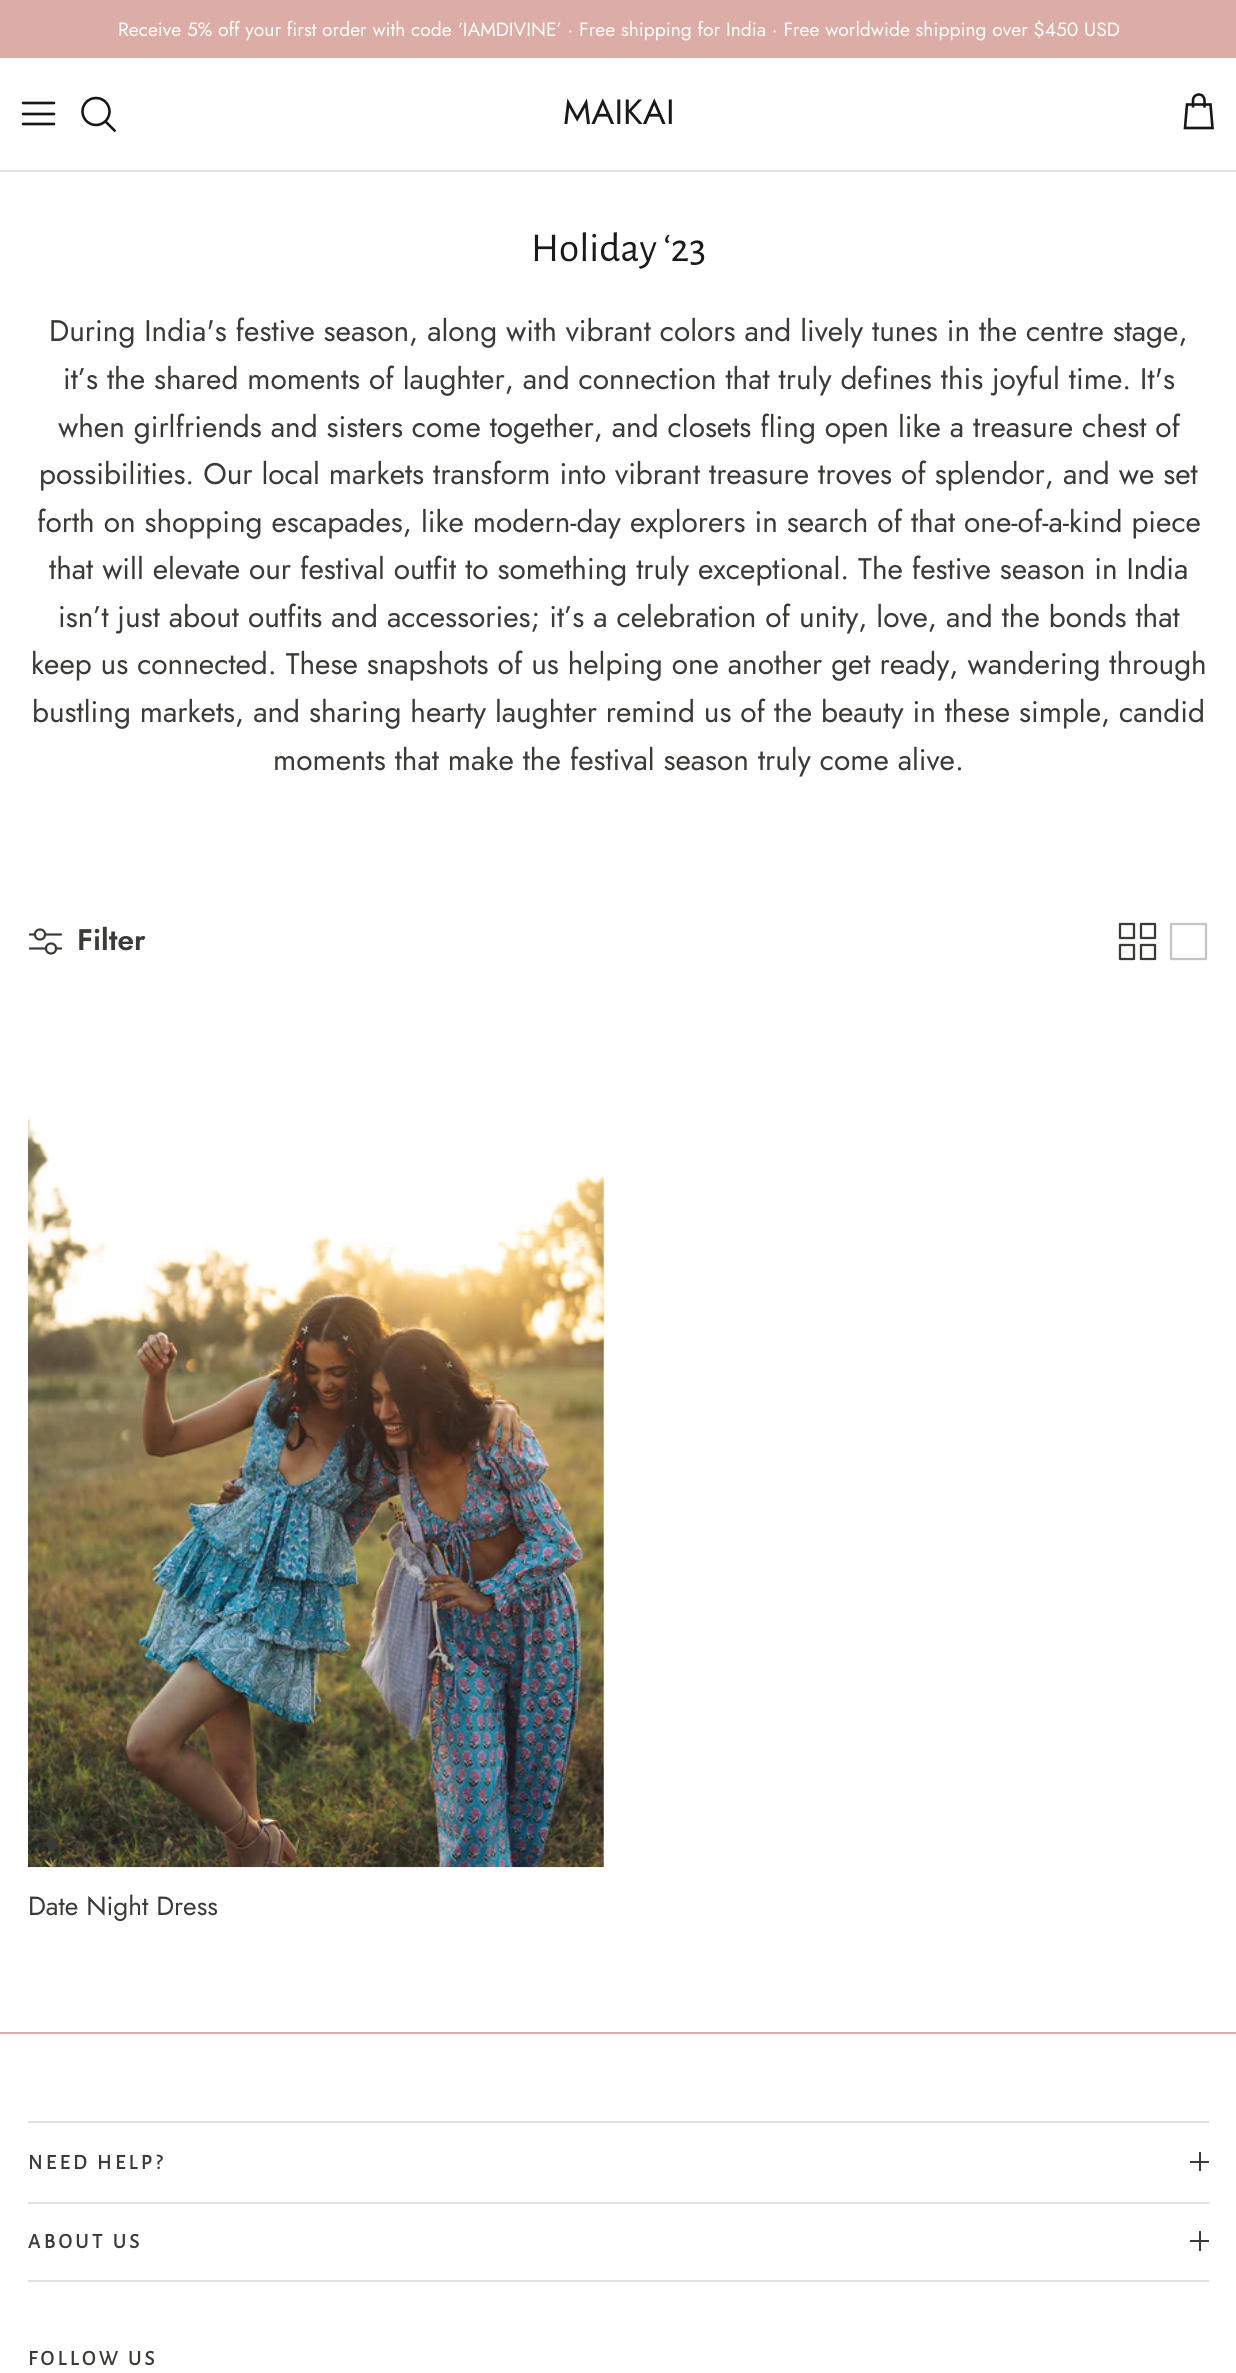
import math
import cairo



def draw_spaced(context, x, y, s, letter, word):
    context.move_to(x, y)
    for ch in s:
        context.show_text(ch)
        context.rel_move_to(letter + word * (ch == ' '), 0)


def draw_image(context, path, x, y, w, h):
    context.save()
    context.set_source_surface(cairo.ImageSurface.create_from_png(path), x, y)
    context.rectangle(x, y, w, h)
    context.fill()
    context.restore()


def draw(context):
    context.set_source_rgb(1, 1, 1)
    context.paint()
    context.set_source_rgb(220 / 255, 173 / 255, 166 / 255)
    context.rectangle(0, 0, 1236, 58)
    context.fill()
    context.set_source_rgb(223 / 255, 227 / 255, 232 / 255)
    context.rectangle(0, 170, 1236, 2)
    context.fill()
    context.new_path()
    context.move_to(23, 114)
    context.line_to(54, 114)
    context.move_to(23, 103)
    context.line_to(54, 103)
    context.move_to(23, 124)
    context.line_to(54, 124)
    context.set_source_rgb(23 / 255, 23 / 255, 23 / 255)
    context.set_line_width(2.6)
    context.set_line_cap(cairo.LineCap.ROUND)
    context.set_line_join(cairo.LineJoin.ROUND)
    context.stroke()
    context.arc(96, 111.5, 13.5, 0, 2 * math.pi)
    context.set_line_cap(cairo.LineCap.BUTT)
    context.set_line_join(cairo.LineJoin.MITER)
    context.stroke()
    context.new_path()
    context.move_to(106.5, 122.5)
    context.line_to(114.5, 130.5)
    context.set_line_cap(cairo.LineCap.SQUARE)
    context.stroke()
    context.new_path()
    context.move_to(1204.5, 107.5)
    context.line_to(1204.5, 100.5)
    context.curve_to(1204.5, 97, 1202, 94.5, 1199, 94.5)
    context.curve_to(1195.5, 94.5, 1193, 97, 1193, 100.5)
    context.line_to(1193, 107.5)
    context.move_to(1187, 104.5)
    context.line_to(1210.5, 104.5)
    context.line_to(1212.5, 128)
    context.line_to(1185, 128)
    context.close_path()
    context.set_line_cap(cairo.LineCap.BUTT)
    context.stroke()
    context.new_path()
    context.move_to(30, 934.5)
    context.line_to(61, 934.5)
    context.move_to(30, 948.5)
    context.line_to(61, 948.5)
    context.set_source_rgb(59 / 255, 58 / 255, 54 / 255)
    context.set_line_width(2.2)
    context.set_line_cap(cairo.LineCap.ROUND)
    context.set_line_join(cairo.LineJoin.ROUND)
    context.stroke()
    context.set_source_rgb(1, 1, 1)
    context.arc(40, 934.5, 5, 0, 2 * math.pi)
    context.fill_preserve()
    context.set_source_rgb(59 / 255, 58 / 255, 54 / 255)
    context.set_line_cap(cairo.LineCap.BUTT)
    context.set_line_join(cairo.LineJoin.MITER)
    context.stroke()
    context.set_source_rgb(1, 1, 1)
    context.arc(51, 948.5, 5, 0, 2 * math.pi)
    context.fill_preserve()
    context.set_source_rgb(59 / 255, 58 / 255, 54 / 255)
    context.stroke()
    draw_image(context, "images/1.png", 1118, 922, 39, 39)
    context.new_path()
    context.move_to(1171, 924)
    context.line_to(1206, 924)
    context.line_to(1206, 959)
    context.line_to(1171, 959)
    context.line_to(1171, 924)
    context.set_source_rgb(196 / 255, 196 / 255, 195 / 255)
    context.set_line_width(2.3)
    context.set_line_cap(cairo.LineCap.ROUND)
    context.set_line_join(cairo.LineJoin.ROUND)
    context.stroke()
    draw_image(context, "images/2.png", 28, 1115, 576, 753)
    context.set_source_rgb(59 / 255, 58 / 255, 54 / 255)
    context.arc(52, 1844, 5, 0, 2 * math.pi)
    context.fill_preserve()
    context.set_line_width(2)
    context.set_line_cap(cairo.LineCap.BUTT)
    context.set_line_join(cairo.LineJoin.MITER)
    context.stroke()
    context.arc(71, 1844, 5, 0, 2 * math.pi)
    context.stroke()
    context.arc(90, 1844, 5, 0, 2 * math.pi)
    context.set_source_rgba(59 / 255, 58 / 255, 54 / 255, 0.25)
    context.stroke()
    context.set_source_rgb(220 / 255, 173 / 255, 166 / 255)
    context.rectangle(0, 2032, 1236, 2)
    context.fill()
    context.set_source_rgb(226 / 255, 225 / 255, 225 / 255)
    context.rectangle(28, 2121, 1181, 2)
    context.fill()
    context.set_source_rgb(59 / 255, 58 / 255, 54 / 255)
    context.rectangle(1199, 2152, 2, 19)
    context.fill()
    context.rectangle(1190, 2161, 19, 2)
    context.fill()
    context.set_source_rgb(226 / 255, 225 / 255, 225 / 255)
    context.rectangle(28, 2202, 1181, 2)
    context.fill()
    context.rectangle(28, 2280, 1181, 2)
    context.fill()
    context.set_source_rgb(59 / 255, 58 / 255, 54 / 255)
    context.rectangle(1199, 2231, 2, 20)
    context.fill()
    context.rectangle(1190, 2240, 19, 2)
    context.fill()
    context.select_font_face("Jost")
    context.set_font_size(19.25)
    context.set_source_rgb(1, 1, 1)
    context.move_to(118, 36)
    context.show_text("Receive 5% off your first order with code ‘IAMDIVINE’ · Free shipping for India · Free worldwide shipping over $450 USD")
    context.set_font_size(35)
    context.set_source_rgb(26 / 255, 26 / 255, 26 / 255)
    context.move_to(563, 124)
    context.show_text("MAIKAI")
    context.select_font_face("Alegreya Sans")
    context.set_font_size(41)
    context.move_to(531, 261)
    context.show_text("Holiday ‘23")
    context.select_font_face("Jost")
    context.set_font_size(29.75)
    context.set_source_rgb(59 / 255, 58 / 255, 54 / 255)
    context.move_to(49, 341)
    context.show_text("During India's festive season, along with vibrant colors and lively tunes in the centre stage,")
    context.move_to(63, 389)
    context.show_text("it’s the shared moments of laughter, and connection that truly defines this joyful time. It's")
    context.move_to(58, 437)
    context.show_text("when girlfriends and sisters come together, and closets fling open like a treasure chest of")
    context.move_to(39, 484)
    context.show_text("possibilities. Our local markets transform into vibrant treasure troves of splendor, and we set")
    context.move_to(37, 532)
    context.show_text("forth on shopping escapades, like modern-day explorers in search of that one-of-a-kind piece")
    context.move_to(49, 579)
    context.show_text("that will elevate our festival outfit to something truly exceptional. The festive season in India")
    context.move_to(58, 627)
    context.show_text("isn’t just about outfits and accessories; it’s a celebration of unity, love, and the bonds that")
    context.move_to(31, 674)
    context.show_text("keep us connected. These snapshots of us helping one another get ready, wandering through")
    context.move_to(32, 722)
    context.show_text("bustling markets, and sharing hearty laughter remind us of the beauty in these simple, candid")
    context.move_to(273, 770)
    context.show_text("moments that make the festival season truly come alive.")
    context.select_font_face("Jost SemiBold")
    context.move_to(77, 950)
    context.show_text("Filter")
    context.select_font_face("Jost")
    context.set_font_size(26.25)
    context.move_to(28, 1915)
    context.show_text("Date Night Dress")
    context.select_font_face("Alegreya Sans", cairo.FontSlant.NORMAL, cairo.FontWeight.BOLD)
    context.set_font_size(21)
    draw_spaced(context, 28, 2169, "NEED HELP?", 3.5, 0)
    draw_spaced(context, 28, 2248, "ABOUT US", 3.5, 0)
    draw_spaced(context, 28, 2365, "FOLLOW US", 3.5, 0)


surface = cairo.ImageSurface(cairo.Format.RGB24, 1236, 2373)
context = cairo.Context(surface)
options = cairo.FontOptions()
options.set_hint_metrics(cairo.HintMetrics.OFF)
options.set_hint_style(cairo.HintStyle.NONE)
context.set_font_options(options)
context.set_miter_limit(4)
draw(context)
surface.write_to_png("out.png")
